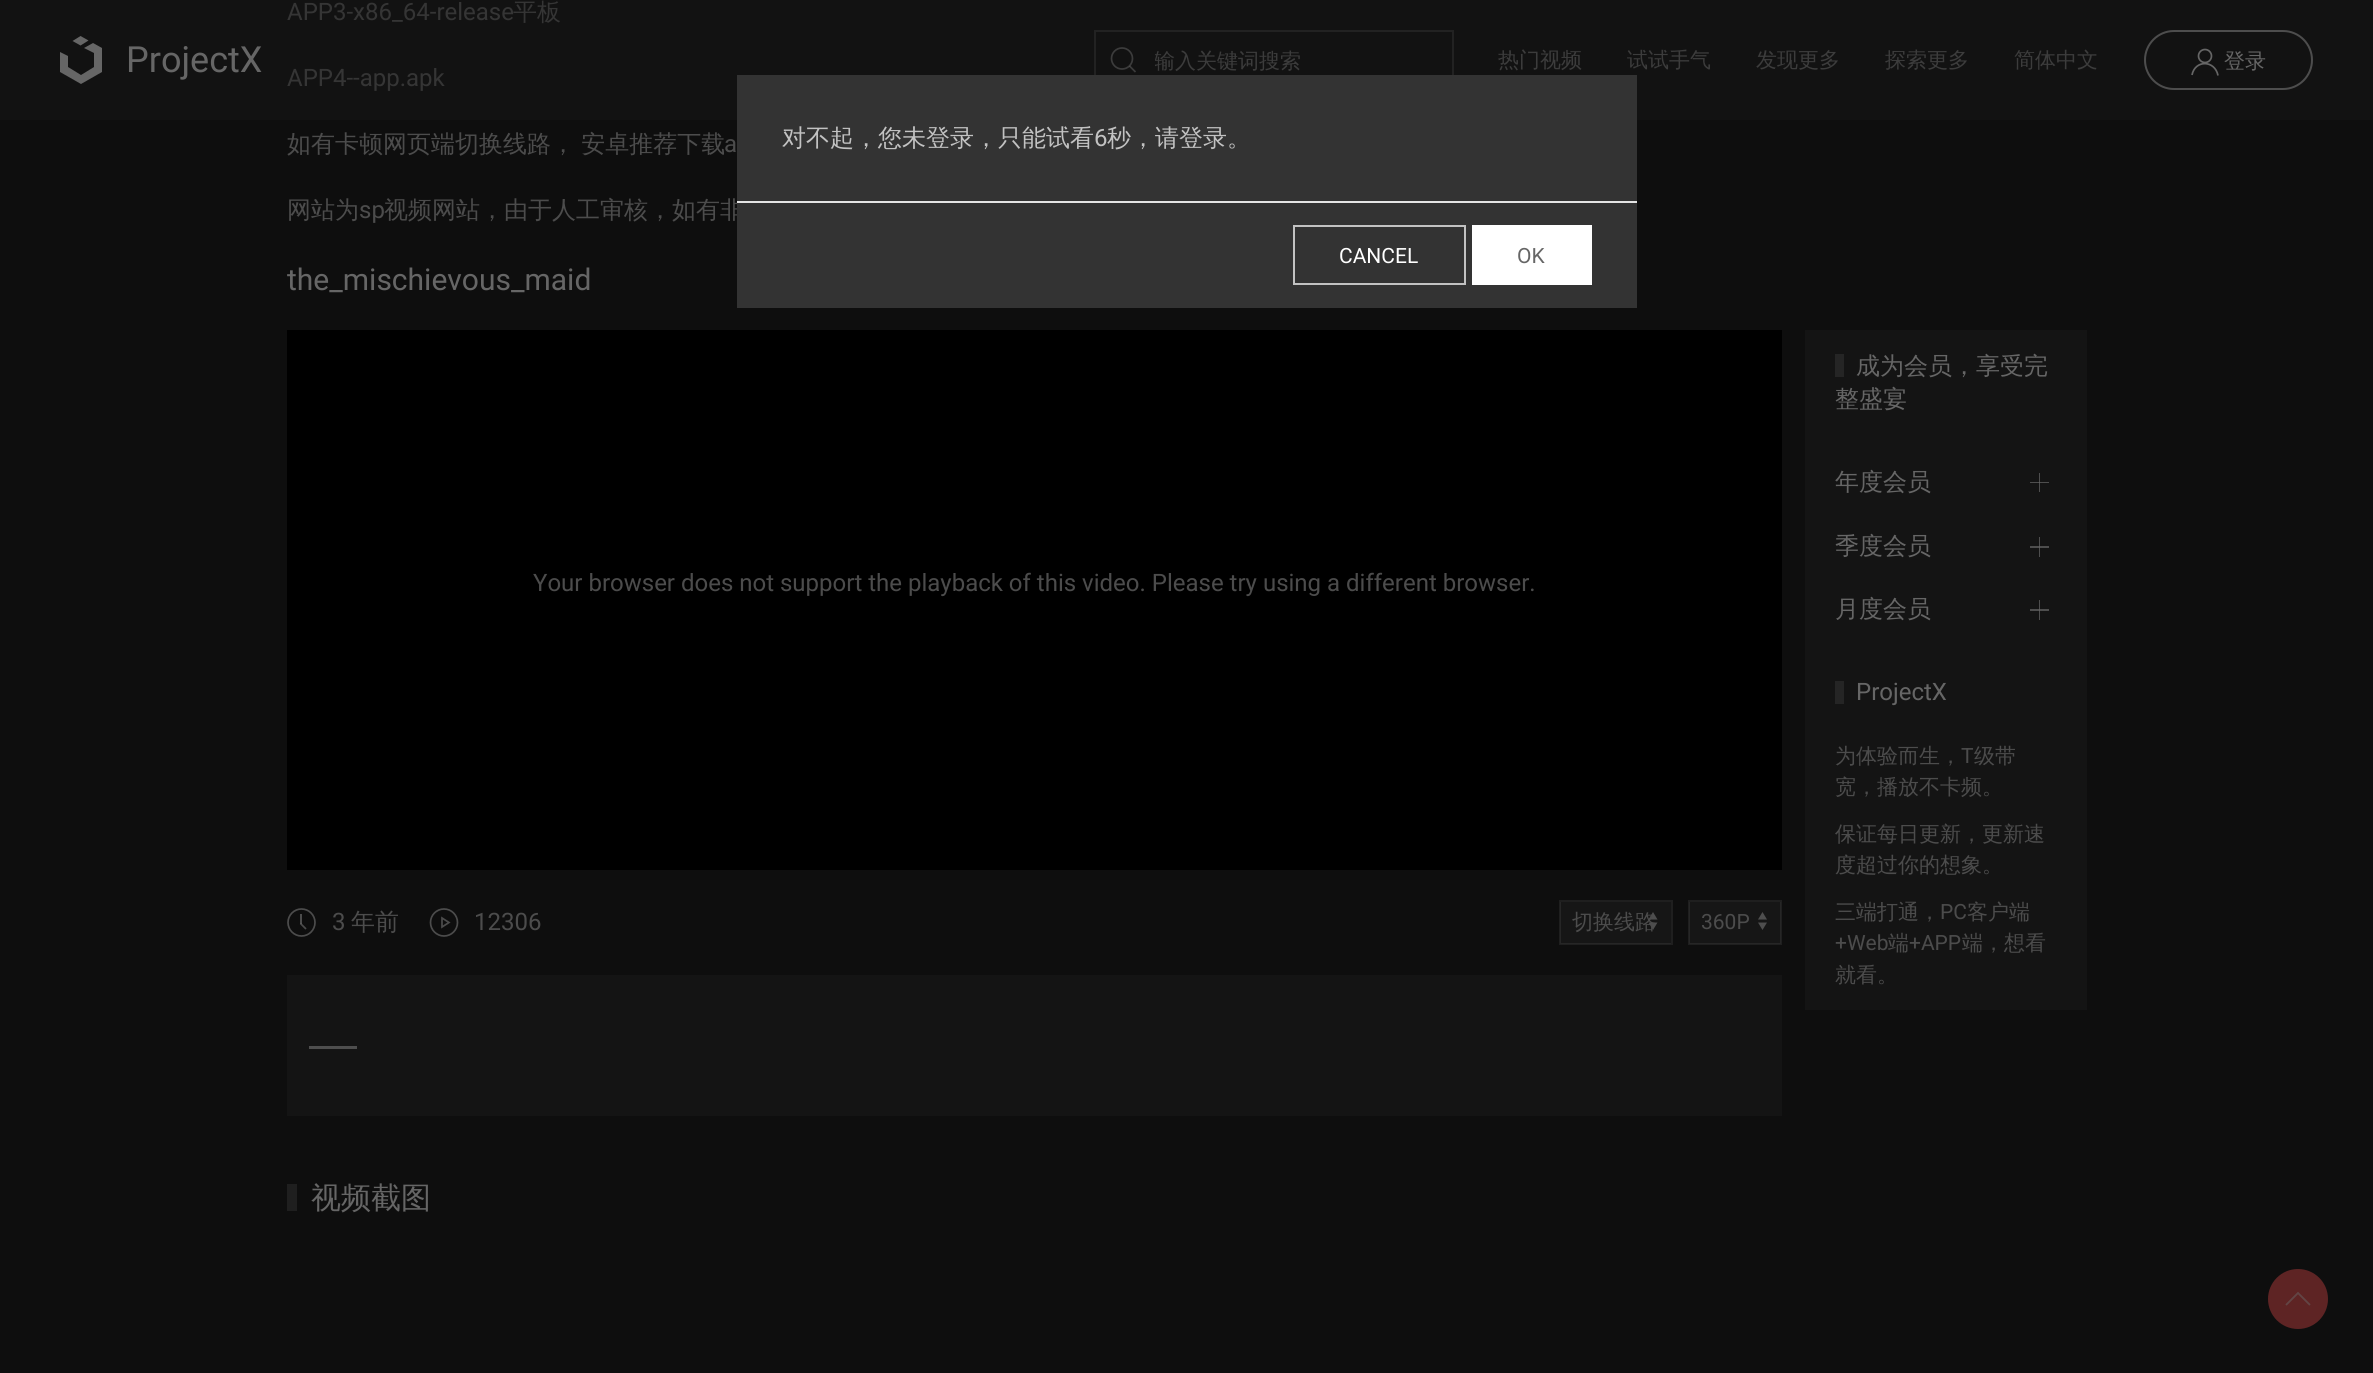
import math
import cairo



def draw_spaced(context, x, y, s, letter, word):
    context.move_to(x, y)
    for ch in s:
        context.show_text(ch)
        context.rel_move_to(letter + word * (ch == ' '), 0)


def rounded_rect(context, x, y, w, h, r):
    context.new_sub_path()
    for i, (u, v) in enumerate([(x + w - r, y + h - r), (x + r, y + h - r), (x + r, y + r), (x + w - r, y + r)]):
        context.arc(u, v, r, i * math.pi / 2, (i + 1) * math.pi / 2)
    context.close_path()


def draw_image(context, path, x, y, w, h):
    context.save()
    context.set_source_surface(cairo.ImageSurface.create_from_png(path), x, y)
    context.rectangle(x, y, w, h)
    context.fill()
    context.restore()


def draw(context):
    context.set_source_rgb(14 / 255, 14 / 255, 14 / 255)
    context.paint()
    context.set_source_rgb(18 / 255, 18 / 255, 18 / 255)
    context.rectangle(0, 0, 2373, 120)
    context.fill()
    context.set_source_rgb(102 / 255, 102 / 255, 102 / 255)
    context.new_path()
    context.move_to(88.5, 40.5)
    context.line_to(80.5, 36)
    context.line_to(72.5, 41)
    context.line_to(80.5, 45.5)
    context.close_path()
    context.fill()
    context.new_path()
    context.move_to(93, 43)
    context.line_to(84, 48)
    context.line_to(94, 53)
    context.line_to(94, 67)
    context.line_to(81, 75)
    context.line_to(68, 67)
    context.line_to(68, 56)
    context.line_to(60, 52)
    context.line_to(60, 72)
    context.line_to(81, 84)
    context.line_to(102, 72)
    context.line_to(102, 48)
    context.close_path()
    context.fill()
    context.rectangle(1095, 31, 358, 58)
    context.set_source_rgb(34 / 255, 34 / 255, 34 / 255)
    context.stroke()
    context.arc(1122, 58.5, 10.5, 0, 2 * math.pi)
    context.set_source_rgb(60 / 255, 60 / 255, 60 / 255)
    context.set_line_width(1.7)
    context.stroke()
    context.new_path()
    context.move_to(1129.5, 66)
    context.line_to(1135.5, 72)
    context.close_path()
    context.set_source_rgba(102 / 255, 102 / 255, 102 / 255, 0.5)
    context.stroke()
    rounded_rect(context, 2145, 31, 167, 58, 29)
    context.set_source_rgb(77 / 255, 77 / 255, 77 / 255)
    context.set_line_width(2)
    context.stroke()
    context.arc(2205, 56, 6.5, 0, 2 * math.pi)
    context.set_source_rgb(102 / 255, 102 / 255, 102 / 255)
    context.set_line_width(1.7)
    context.stroke()
    context.new_path()
    context.move_to(2192, 75)
    context.curve_to(2195, 59.5, 2215, 60, 2218, 75.5)
    context.stroke()
    context.set_source_rgb(0, 0, 0)
    context.rectangle(287, 330, 1495, 540)
    context.fill()
    context.arc(301.5, 922.5, 13.5, 0, 2 * math.pi)
    context.set_source_rgb(76 / 255, 76 / 255, 76 / 255)
    context.stroke()
    context.rectangle(300, 914, 2, 10)
    context.fill()
    context.new_path()
    context.move_to(306, 929)
    context.line_to(300.5, 923.5)
    context.set_source_rgba(102 / 255, 102 / 255, 102 / 255, 0.7)
    context.stroke()
    context.new_path()
    context.move_to(442, 918)
    context.line_to(449, 922.5)
    context.line_to(442, 927)
    context.close_path()
    context.set_source_rgb(76 / 255, 76 / 255, 76 / 255)
    context.stroke()
    context.arc(444, 922.5, 13.5, 0, 2 * math.pi)
    context.stroke()
    context.set_source_rgb(22 / 255, 22 / 255, 22 / 255)
    context.rectangle(1560, 902, 111, 42)
    context.fill()
    draw_image(context, "images/1.png", 1648, 912, 10, 18)
    context.rectangle(1560, 901, 112, 43)
    context.set_source_rgba(102 / 255, 102 / 255, 102 / 255, 0.2)
    context.set_line_width(2)
    context.stroke()
    context.set_source_rgb(22 / 255, 22 / 255, 22 / 255)
    context.rectangle(1689, 902, 92, 42)
    context.fill()
    draw_image(context, "images/2.png", 1758, 912, 9, 18)
    context.rectangle(1689, 901, 92, 43)
    context.set_source_rgba(102 / 255, 102 / 255, 102 / 255, 0.2)
    context.stroke()
    context.set_source_rgb(20 / 255, 20 / 255, 20 / 255)
    context.rectangle(287, 975, 1495, 141)
    context.fill()
    context.set_source_rgb(78 / 255, 78 / 255, 78 / 255)
    context.rectangle(309, 1046, 48, 3)
    context.fill()
    context.set_source_rgb(20 / 255, 20 / 255, 20 / 255)
    context.rectangle(1805, 330, 282, 680)
    context.fill()
    context.set_source_rgb(78 / 255, 78 / 255, 78 / 255)
    context.rectangle(2039, 600, 1, 20)
    context.fill()
    context.rectangle(2039, 537, 1, 20)
    context.fill()
    context.rectangle(2039, 473, 1, 19)
    context.fill()
    context.set_source_rgb(37 / 255, 37 / 255, 37 / 255)
    context.rectangle(1835, 354, 9, 23)
    context.fill()
    context.set_source_rgb(78 / 255, 78 / 255, 78 / 255)
    context.rectangle(2030, 482, 19, 1)
    context.fill()
    context.set_source_rgb(95 / 255, 95 / 255, 95 / 255)
    context.rectangle(2039, 482, 1, 1)
    context.fill()
    context.set_source_rgb(78 / 255, 78 / 255, 78 / 255)
    context.rectangle(2030, 546, 19, 2)
    context.fill()
    context.set_source_rgb(95 / 255, 95 / 255, 95 / 255)
    context.rectangle(2039, 546, 1, 2)
    context.fill()
    context.set_source_rgb(78 / 255, 78 / 255, 78 / 255)
    context.rectangle(2030, 609, 19, 2)
    context.fill()
    context.set_source_rgb(95 / 255, 95 / 255, 95 / 255)
    context.rectangle(2039, 609, 1, 2)
    context.fill()
    context.set_source_rgb(37 / 255, 37 / 255, 37 / 255)
    context.rectangle(1835, 681, 9, 23)
    context.fill()
    context.set_source_rgb(31 / 255, 31 / 255, 31 / 255)
    context.rectangle(287, 1184, 10, 27)
    context.fill()
    context.set_source_rgb(94 / 255, 36 / 255, 36 / 255)
    context.arc(2298, 1299, 30, 0, 2 * math.pi)
    context.fill()
    context.new_path()
    context.move_to(2286, 1305)
    context.line_to(2298, 1293)
    context.line_to(2310, 1305)
    context.set_source_rgb(98 / 255, 69 / 255, 69 / 255)
    context.set_line_width(1.8)
    context.stroke()
    context.select_font_face("Roboto")
    context.set_font_size(24)
    context.set_source_rgb(53 / 255, 53 / 255, 53 / 255)
    context.move_to(287, 20)
    context.show_text("APP3-x86_64-release")
    context.select_font_face("WenQuanYi Zen Hei Medium")
    context.move_to(513, 20)
    context.show_text("平板")
    context.select_font_face("Roboto")
    context.move_to(287, 86)
    context.show_text("APP4--app.apk")
    context.select_font_face("WenQuanYi Zen Hei Medium")
    context.set_source_rgb(76 / 255, 76 / 255, 76 / 255)
    draw_spaced(context, 287, 152, "如有卡顿网页端切换线路， 安卓推荐下载", 0, -1)
    context.select_font_face("Roboto")
    context.move_to(724, 152)
    context.show_text("a")
    context.select_font_face("WenQuanYi Zen Hei Medium")
    context.move_to(287, 218)
    context.show_text("网站为")
    context.select_font_face("Roboto")
    context.move_to(359, 218)
    context.show_text("sp")
    context.select_font_face("WenQuanYi Zen Hei Medium")
    context.move_to(384, 218)
    context.show_text("视频网站，由于人工审核，如有非")
    context.select_font_face("Roboto")
    context.set_font_size(36)
    context.set_source_rgb(102 / 255, 102 / 255, 102 / 255)
    context.move_to(126, 72)
    context.show_text("ProjectX")
    context.save()
    context.rectangle(1155, 48, 276, 27)
    context.clip()
    context.select_font_face("WenQuanYi Zen Hei Medium")
    context.set_font_size(21)
    context.set_source_rgb(60 / 255, 60 / 255, 60 / 255)
    context.move_to(1154, 68)
    context.show_text("输入关键词搜索")
    context.restore()
    context.select_font_face("WenQuanYi Zen Hei Medium")
    context.set_font_size(21)
    context.set_source_rgb(60 / 255, 60 / 255, 60 / 255)
    context.move_to(1498, 67)
    context.show_text("热门视频")
    context.move_to(1627, 67)
    context.show_text("试试手气")
    context.move_to(1756, 67)
    context.show_text("发现更多")
    context.move_to(1885, 67)
    context.show_text("探索更多")
    context.move_to(2014, 67)
    context.show_text("简体中文")
    context.set_source_rgb(102 / 255, 102 / 255, 102 / 255)
    context.move_to(2224, 68)
    context.show_text("登录")
    context.set_source_rgb(51 / 255, 51 / 255, 51 / 255)
    context.rectangle(737, 75, 900, 126)
    context.fill()
    context.set_font_size(24)
    context.set_source_rgb(194 / 255, 194 / 255, 194 / 255)
    context.move_to(782, 146)
    context.show_text("对不起，您未登录，只能试看")
    context.select_font_face("Roboto")
    context.move_to(1094, 146)
    context.show_text("6")
    context.select_font_face("WenQuanYi Zen Hei Medium")
    context.move_to(1107, 146)
    context.show_text("秒，请登录。")
    context.set_source_rgb(51 / 255, 51 / 255, 51 / 255)
    context.rectangle(737, 203, 900, 105)
    context.fill()
    context.set_source_rgb(229 / 255, 229 / 255, 229 / 255)
    context.rectangle(737, 201, 900, 2)
    context.fill()
    context.rectangle(1294, 226, 171, 58)
    context.set_source_rgb(194 / 255, 194 / 255, 194 / 255)
    context.set_line_width(2)
    context.stroke()
    context.select_font_face("Roboto")
    context.set_font_size(21)
    context.set_source_rgb(1, 1, 1)
    context.move_to(1339, 263)
    context.show_text("CANCEL")
    context.rectangle(1472, 225, 120, 60)
    context.fill()
    context.set_source_rgb(102 / 255, 102 / 255, 102 / 255)
    context.move_to(1517, 263)
    context.show_text("OK")
    context.set_font_size(30)
    context.move_to(287, 290)
    context.show_text("the_mischievous_maid")
    context.set_font_size(24)
    context.set_source_rgb(76 / 255, 76 / 255, 76 / 255)
    context.move_to(533, 591)
    context.show_text("Your browser does not support the playback of this video. Please try using a different browser.")
    context.move_to(332, 930)
    context.show_text("3")
    context.select_font_face("WenQuanYi Zen Hei Medium")
    context.move_to(351, 930)
    context.show_text("年前")
    context.select_font_face("Roboto")
    context.move_to(474, 930)
    context.show_text("12306")
    context.select_font_face("WenQuanYi Zen Hei Medium")
    context.set_font_size(21)
    context.move_to(1572, 929)
    context.show_text("切换线路")
    context.select_font_face("Roboto")
    context.move_to(1701, 929)
    context.show_text("360P")
    context.select_font_face("WenQuanYi Zen Hei Medium")
    context.set_font_size(24)
    context.set_source_rgb(102 / 255, 102 / 255, 102 / 255)
    context.move_to(1856, 374)
    context.show_text("成为会员，享受完")
    context.move_to(1835, 407)
    context.show_text("整盛宴")
    context.move_to(1835, 490)
    context.show_text("年度会员")
    context.move_to(1835, 554)
    context.show_text("季度会员")
    context.move_to(1835, 617)
    context.show_text("月度会员")
    context.select_font_face("Roboto")
    context.move_to(1856, 700)
    context.show_text("ProjectX")
    context.select_font_face("WenQuanYi Zen Hei Medium")
    context.set_font_size(21)
    context.set_source_rgb(76 / 255, 76 / 255, 76 / 255)
    context.move_to(1835, 763)
    context.show_text("为体验而生，")
    context.select_font_face("Roboto")
    context.move_to(1961, 763)
    context.show_text("T")
    context.select_font_face("WenQuanYi Zen Hei Medium")
    context.move_to(1974, 763)
    context.show_text("级带")
    context.move_to(1835, 794)
    context.show_text("宽，播放不卡频。")
    context.move_to(1835, 841)
    context.show_text("保证每日更新，更新速")
    context.move_to(1835, 872)
    context.show_text("度超过你的想象。")
    context.move_to(1835, 919)
    context.show_text("三端打通，")
    context.select_font_face("Roboto")
    context.move_to(1940, 919)
    context.show_text("PC")
    context.select_font_face("WenQuanYi Zen Hei Medium")
    context.move_to(1967, 919)
    context.show_text("客户端")
    context.select_font_face("Roboto")
    context.move_to(1835, 950)
    context.show_text("+Web")
    context.select_font_face("WenQuanYi Zen Hei Medium")
    context.move_to(1888, 950)
    context.show_text("端")
    context.select_font_face("Roboto")
    context.move_to(1909, 950)
    context.show_text("+APP")
    context.select_font_face("WenQuanYi Zen Hei Medium")
    context.move_to(1962, 950)
    context.show_text("端，想看")
    context.move_to(1835, 982)
    context.show_text("就看。")
    context.set_font_size(30)
    context.set_source_rgb(102 / 255, 102 / 255, 102 / 255)
    context.move_to(311, 1208)
    context.show_text("视频截图")


surface = cairo.ImageSurface(cairo.Format.RGB24, 2373, 1373)
context = cairo.Context(surface)
options = cairo.FontOptions()
options.set_hint_metrics(cairo.HintMetrics.OFF)
options.set_hint_style(cairo.HintStyle.NONE)
context.set_font_options(options)
context.set_miter_limit(4)
draw(context)
surface.write_to_png("out.png")
